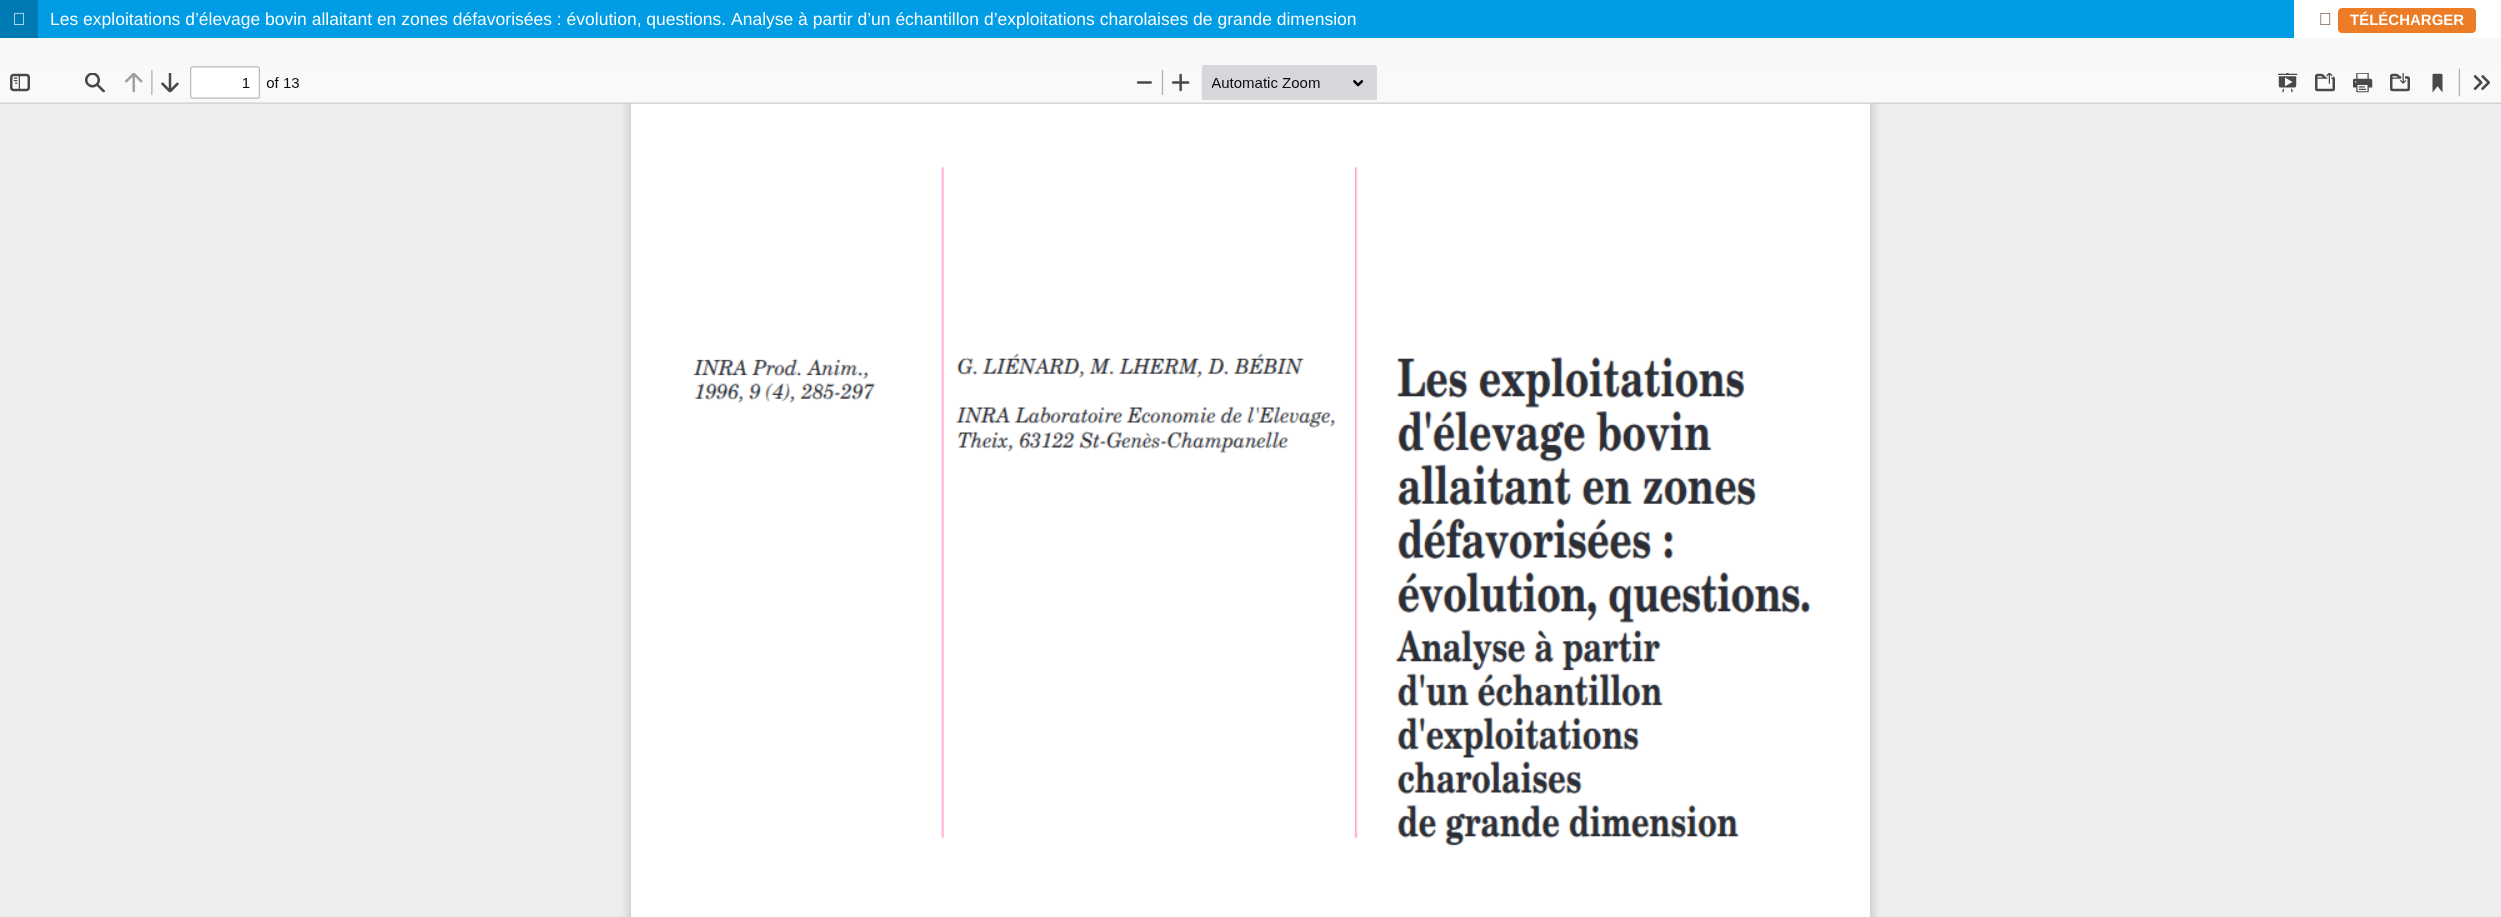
import math
import cairo



def rounded_rect(context, x, y, w, h, r):
    context.new_sub_path()
    for i, (u, v) in enumerate([(x + w - r, y + h - r), (x + r, y + h - r), (x + r, y + r), (x + w - r, y + r)]):
        context.arc(u, v, r, i * math.pi / 2, (i + 1) * math.pi / 2)
    context.close_path()


def draw_image(context, path, x, y, w, h):
    context.save()
    context.set_source_surface(cairo.ImageSurface.create_from_png(path), x, y)
    context.rectangle(x, y, w, h)
    context.fill()
    context.restore()


def draw(context):
    context.set_source_rgb(248 / 255, 248 / 255, 248 / 255)
    context.paint()
    context.set_source_rgb(0, 157 / 255, 229 / 255)
    context.rectangle(38, 0, 2256, 38)
    context.fill()
    context.set_source_rgb(0, 122 / 255, 178 / 255)
    context.rectangle(0, 0, 38, 38)
    context.fill()
    draw_image(context, "images/1.png", 14, 12, 10, 13)
    context.set_source_rgb(1, 1, 1)
    context.rectangle(2294, 0, 207, 38)
    context.fill()
    draw_image(context, "images/2.png", 2320, 12, 11, 13)
    context.set_source_rgb(236 / 255, 124 / 255, 38 / 255)
    rounded_rect(context, 2338, 8, 138, 25, 4)
    context.fill()
    draw_image(context, "images/3.png", 0, 65, 2501, 852)
    context.select_font_face("Liberation Sans")
    context.set_font_size(17.5)
    context.set_source_rgb(1, 1, 1)
    context.move_to(50, 25)
    context.show_text("Les exploitations d’élevage bovin allaitant en zones défavorisées : évolution, questions. Analyse à partir d’un échantillon d’exploitations charolaises de grande dimension")
    context.select_font_face("Liberation Sans", cairo.FontSlant.NORMAL, cairo.FontWeight.BOLD)
    context.set_font_size(15)
    context.move_to(2350, 25)
    context.show_text("TÉLÉCHARGER")


surface = cairo.ImageSurface(cairo.Format.RGB24, 2501, 917)
context = cairo.Context(surface)
options = cairo.FontOptions()
options.set_hint_metrics(cairo.HintMetrics.OFF)
options.set_hint_style(cairo.HintStyle.NONE)
context.set_font_options(options)
context.set_miter_limit(4)
draw(context)
surface.write_to_png("out.png")
